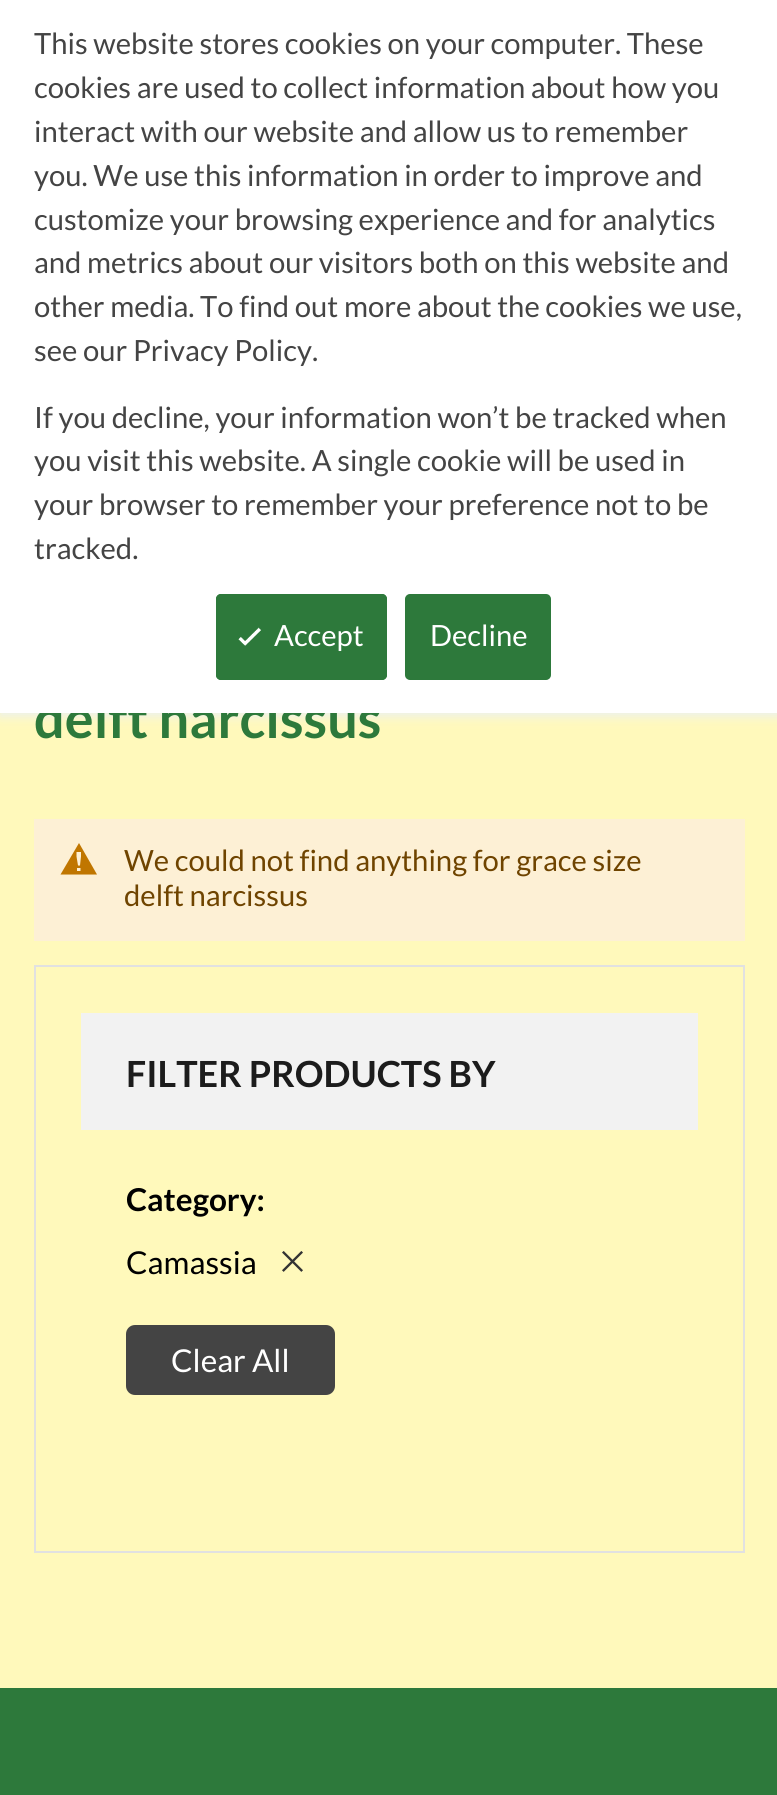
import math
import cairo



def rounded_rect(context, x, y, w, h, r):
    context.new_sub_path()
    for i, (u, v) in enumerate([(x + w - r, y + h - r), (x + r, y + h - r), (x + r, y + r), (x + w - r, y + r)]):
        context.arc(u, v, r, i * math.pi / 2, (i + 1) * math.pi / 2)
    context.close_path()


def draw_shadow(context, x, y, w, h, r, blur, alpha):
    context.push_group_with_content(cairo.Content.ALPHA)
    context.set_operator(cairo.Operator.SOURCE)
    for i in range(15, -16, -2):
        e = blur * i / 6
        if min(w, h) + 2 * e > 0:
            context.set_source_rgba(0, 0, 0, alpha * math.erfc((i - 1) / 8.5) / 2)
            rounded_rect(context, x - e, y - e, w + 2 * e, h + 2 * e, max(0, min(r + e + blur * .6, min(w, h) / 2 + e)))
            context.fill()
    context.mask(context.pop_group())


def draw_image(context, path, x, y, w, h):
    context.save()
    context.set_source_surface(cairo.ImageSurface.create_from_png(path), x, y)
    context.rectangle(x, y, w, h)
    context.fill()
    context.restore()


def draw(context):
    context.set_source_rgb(1, 249 / 255, 187 / 255)
    context.paint()
    context.set_source_rgb(234 / 255, 240 / 255, 246 / 255)
    draw_shadow(context, 0, 2, 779, 714, 0, 5.5, 1)
    context.set_source_rgb(253 / 255, 240 / 255, 213 / 255)
    context.rectangle(34, 819, 711, 122)
    context.fill()
    context.set_source_rgb(192 / 255, 118 / 255, 0)
    context.new_path()
    context.move_to(79, 843)
    context.line_to(60.5, 874.5)
    context.line_to(97, 874.5)
    context.close_path()
    context.move_to(80.5, 871)
    context.line_to(77, 871)
    context.line_to(77, 868)
    context.line_to(80.5, 868)
    context.close_path()
    context.move_to(80, 865.5)
    context.line_to(78, 865.5)
    context.line_to(76.5, 856.5)
    context.line_to(76.5, 852)
    context.line_to(81, 852)
    context.line_to(81, 856.5)
    context.close_path()
    context.fill()
    context.rectangle(35, 966, 709, 586)
    context.set_source_rgb(225 / 255, 225 / 255, 225 / 255)
    context.stroke()
    context.set_source_rgb(242 / 255, 242 / 255, 242 / 255)
    context.rectangle(81, 1013, 617, 117)
    context.fill()
    draw_image(context, "images/2.png", 282, 1251, 21, 21)
    context.set_source_rgb(68 / 255, 68 / 255, 68 / 255)
    rounded_rect(context, 126, 1325, 209, 70, 9)
    context.fill()
    context.set_source_rgb(45 / 255, 121 / 255, 59 / 255)
    context.rectangle(0, 1688, 777, 107)
    context.fill()
    context.select_font_face("Lato", cairo.FontSlant.NORMAL, cairo.FontWeight.BOLD)
    context.set_font_size(54)
    context.move_to(34, 738)
    context.show_text("delft narcissus")
    context.set_source_rgb(1, 1, 1)
    context.rectangle(0, 0, 777, 713)
    context.fill()
    context.set_source_rgb(45 / 255, 121 / 255, 59 / 255)
    rounded_rect(context, 406, 595, 144, 84, 4)
    context.fill_preserve()
    context.stroke()
    context.select_font_face("Lato")
    context.set_font_size(29.25)
    context.set_source_rgb(1, 1, 1)
    context.move_to(430, 646)
    context.show_text("Decline")
    context.set_source_rgb(45 / 255, 121 / 255, 59 / 255)
    rounded_rect(context, 216, 594, 171, 86, 5)
    context.fill()
    draw_image(context, "images/1.png", 238, 627, 23, 19)
    rounded_rect(context, 217, 595, 169, 84, 4)
    context.stroke()
    context.set_source_rgb(1, 1, 1)
    context.move_to(274, 646)
    context.show_text("Accept")
    context.set_source_rgb(68 / 255, 68 / 255, 68 / 255)
    context.move_to(34, 559)
    context.show_text("tracked.")
    context.move_to(34, 515)
    context.show_text("your browser to remember your preference not to be")
    context.move_to(34, 471)
    context.show_text("you visit this website. A single cookie will be used in")
    context.move_to(34, 428)
    context.show_text("If you decline, your information won’t be tracked when")
    context.move_to(34, 361)
    context.show_text("see our Privacy Policy.")
    context.move_to(34, 317)
    context.show_text("other media. To find out more about the cookies we use,")
    context.move_to(34, 273)
    context.show_text("and metrics about our visitors both on this website and")
    context.move_to(34, 230)
    context.show_text("customize your browsing experience and for analytics")
    context.move_to(34, 186)
    context.show_text("you. We use this information in order to improve and")
    context.move_to(34, 142)
    context.show_text("interact with our website and allow us to remember")
    context.move_to(34, 98)
    context.show_text("cookies are used to collect information about how you")
    context.move_to(34, 54)
    context.show_text("This website stores cookies on your computer. These")
    context.set_source_rgb(111 / 255, 68 / 255, 0)
    context.move_to(124, 871)
    context.show_text("We could not find anything for grace size")
    context.move_to(124, 906)
    context.show_text("delft narcissus")
    context.select_font_face("Lato", cairo.FontSlant.NORMAL, cairo.FontWeight.BOLD)
    context.set_font_size(36)
    context.set_source_rgb(28 / 255, 28 / 255, 28 / 255)
    context.move_to(126, 1087)
    context.show_text("FILTER PRODUCTS BY")
    context.set_font_size(31.5)
    context.set_source_rgb(0, 0, 0)
    context.move_to(126, 1211)
    context.show_text("Category:")
    context.select_font_face("Lato")
    context.move_to(126, 1274)
    context.show_text("Camassia")
    context.set_source_rgb(1, 1, 1)
    context.move_to(171, 1372)
    context.show_text("Clear All")


surface = cairo.ImageSurface(cairo.Format.RGB24, 777, 1795)
context = cairo.Context(surface)
options = cairo.FontOptions()
options.set_hint_metrics(cairo.HintMetrics.OFF)
options.set_hint_style(cairo.HintStyle.NONE)
context.set_font_options(options)
context.set_miter_limit(4)
draw(context)
surface.write_to_png("out.png")
